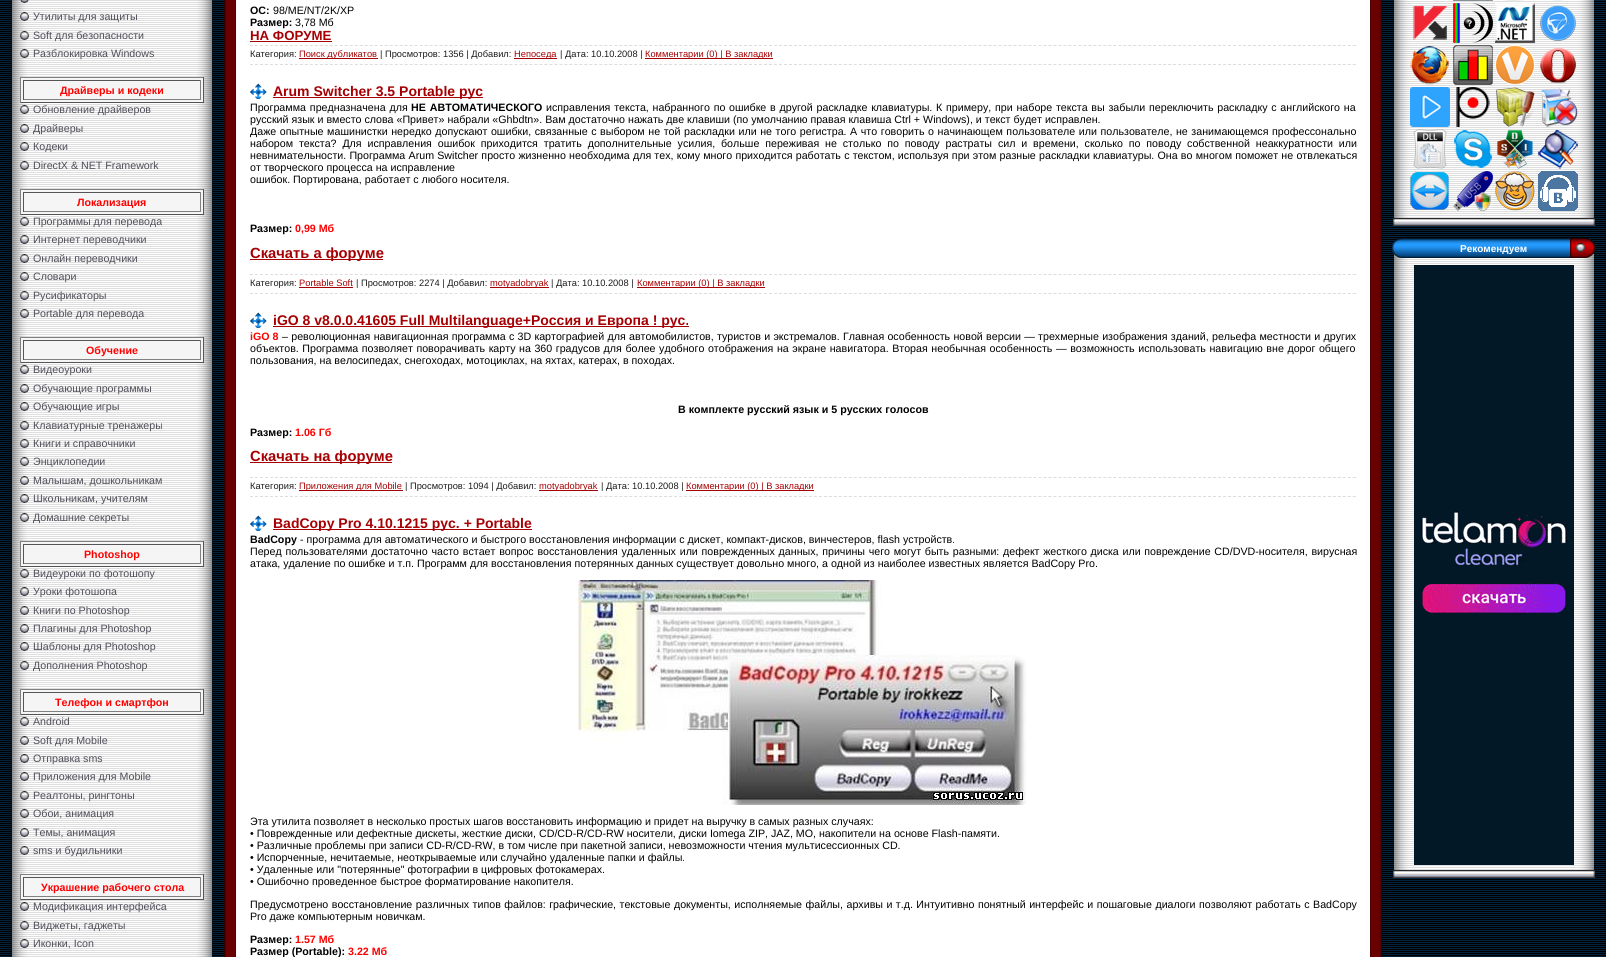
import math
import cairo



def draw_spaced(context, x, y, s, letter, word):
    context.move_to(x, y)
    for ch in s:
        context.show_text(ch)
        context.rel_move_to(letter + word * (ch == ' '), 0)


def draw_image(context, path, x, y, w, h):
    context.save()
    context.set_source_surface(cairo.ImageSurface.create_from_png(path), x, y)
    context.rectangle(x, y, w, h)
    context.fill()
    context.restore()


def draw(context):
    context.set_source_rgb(3 / 255, 34 / 255, 60 / 255)
    context.paint()
    draw_image(context, "images/1.png", 0, 1, 1606, 955)
    draw_image(context, "images/2.png", 12, 0, 200, 957)
    draw_image(context, "images/3.png", 20, 0, 9, 3)
    draw_image(context, "images/4.png", 20, 12, 9, 9)
    draw_image(context, "images/5.png", 20, 31, 9, 9)
    draw_image(context, "images/5.png", 20, 49, 9, 9)
    context.set_source_rgb(245 / 255, 245 / 255, 245 / 255)
    context.rectangle(21, 78, 182, 24)
    context.fill()
    context.set_source_rgb(128 / 255, 128 / 255, 128 / 255)
    context.rectangle(20, 77, 184, 1)
    context.fill()
    context.set_source_rgb(85 / 255, 85 / 255, 85 / 255)
    context.rectangle(203, 77, 1, 26)
    context.fill()
    context.rectangle(20, 102, 184, 1)
    context.fill()
    context.set_source_rgb(128 / 255, 128 / 255, 128 / 255)
    context.rectangle(20, 77, 1, 26)
    context.fill()
    context.set_source_rgb(85 / 255, 85 / 255, 85 / 255)
    context.rectangle(23, 80, 178, 1)
    context.fill()
    context.set_source_rgb(128 / 255, 128 / 255, 128 / 255)
    context.rectangle(200, 80, 1, 20)
    context.fill()
    context.rectangle(23, 99, 178, 1)
    context.fill()
    context.set_source_rgb(85 / 255, 85 / 255, 85 / 255)
    context.rectangle(23, 80, 1, 20)
    context.fill()
    draw_image(context, "images/5.png", 20, 105, 9, 9)
    draw_image(context, "images/4.png", 20, 124, 9, 9)
    draw_image(context, "images/4.png", 20, 142, 9, 9)
    draw_image(context, "images/5.png", 20, 161, 9, 9)
    context.set_source_rgb(245 / 255, 245 / 255, 245 / 255)
    context.rectangle(21, 190, 182, 24)
    context.fill()
    context.set_source_rgb(128 / 255, 128 / 255, 128 / 255)
    context.rectangle(20, 189, 184, 1)
    context.fill()
    context.set_source_rgb(85 / 255, 85 / 255, 85 / 255)
    context.rectangle(203, 189, 1, 26)
    context.fill()
    context.rectangle(20, 214, 184, 1)
    context.fill()
    context.set_source_rgb(128 / 255, 128 / 255, 128 / 255)
    context.rectangle(20, 189, 1, 26)
    context.fill()
    context.set_source_rgb(85 / 255, 85 / 255, 85 / 255)
    context.rectangle(23, 192, 178, 1)
    context.fill()
    context.set_source_rgb(128 / 255, 128 / 255, 128 / 255)
    context.rectangle(200, 192, 1, 20)
    context.fill()
    context.rectangle(23, 211, 178, 1)
    context.fill()
    context.set_source_rgb(85 / 255, 85 / 255, 85 / 255)
    context.rectangle(23, 192, 1, 20)
    context.fill()
    draw_image(context, "images/5.png", 20, 217, 9, 9)
    draw_image(context, "images/5.png", 20, 235, 9, 9)
    draw_image(context, "images/4.png", 20, 254, 9, 9)
    draw_image(context, "images/4.png", 20, 272, 9, 9)
    draw_image(context, "images/5.png", 20, 291, 9, 9)
    draw_image(context, "images/5.png", 20, 309, 9, 9)
    context.set_source_rgb(245 / 255, 245 / 255, 245 / 255)
    context.rectangle(21, 338, 182, 24)
    context.fill()
    context.set_source_rgb(128 / 255, 128 / 255, 128 / 255)
    context.rectangle(20, 337, 184, 1)
    context.fill()
    context.set_source_rgb(85 / 255, 85 / 255, 85 / 255)
    context.rectangle(203, 337, 1, 26)
    context.fill()
    context.rectangle(20, 362, 184, 1)
    context.fill()
    context.set_source_rgb(128 / 255, 128 / 255, 128 / 255)
    context.rectangle(20, 337, 1, 26)
    context.fill()
    context.set_source_rgb(85 / 255, 85 / 255, 85 / 255)
    context.rectangle(23, 340, 178, 1)
    context.fill()
    context.set_source_rgb(128 / 255, 128 / 255, 128 / 255)
    context.rectangle(200, 340, 1, 20)
    context.fill()
    context.rectangle(23, 359, 178, 1)
    context.fill()
    context.set_source_rgb(85 / 255, 85 / 255, 85 / 255)
    context.rectangle(23, 340, 1, 20)
    context.fill()
    draw_image(context, "images/5.png", 20, 365, 9, 9)
    draw_image(context, "images/4.png", 20, 384, 9, 9)
    draw_image(context, "images/4.png", 20, 402, 9, 9)
    draw_image(context, "images/5.png", 20, 421, 9, 9)
    draw_image(context, "images/5.png", 20, 439, 9, 9)
    draw_image(context, "images/5.png", 20, 457, 9, 9)
    draw_image(context, "images/4.png", 20, 476, 9, 9)
    draw_image(context, "images/4.png", 20, 494, 9, 9)
    draw_image(context, "images/5.png", 20, 513, 9, 9)
    context.set_source_rgb(245 / 255, 245 / 255, 245 / 255)
    context.rectangle(21, 542, 182, 24)
    context.fill()
    context.set_source_rgb(128 / 255, 128 / 255, 128 / 255)
    context.rectangle(20, 541, 184, 1)
    context.fill()
    context.set_source_rgb(85 / 255, 85 / 255, 85 / 255)
    context.rectangle(203, 541, 1, 26)
    context.fill()
    context.rectangle(20, 566, 184, 1)
    context.fill()
    context.set_source_rgb(128 / 255, 128 / 255, 128 / 255)
    context.rectangle(20, 541, 1, 26)
    context.fill()
    context.set_source_rgb(85 / 255, 85 / 255, 85 / 255)
    context.rectangle(23, 544, 178, 1)
    context.fill()
    context.set_source_rgb(128 / 255, 128 / 255, 128 / 255)
    context.rectangle(200, 544, 1, 20)
    context.fill()
    context.rectangle(23, 563, 178, 1)
    context.fill()
    context.set_source_rgb(85 / 255, 85 / 255, 85 / 255)
    context.rectangle(23, 544, 1, 20)
    context.fill()
    draw_image(context, "images/5.png", 20, 569, 9, 9)
    draw_image(context, "images/5.png", 20, 587, 9, 9)
    draw_image(context, "images/4.png", 20, 606, 9, 9)
    draw_image(context, "images/4.png", 20, 624, 9, 9)
    draw_image(context, "images/4.png", 20, 642, 9, 9)
    draw_image(context, "images/5.png", 20, 661, 9, 9)
    context.set_source_rgb(245 / 255, 245 / 255, 245 / 255)
    context.rectangle(21, 690, 182, 24)
    context.fill()
    context.set_source_rgb(128 / 255, 128 / 255, 128 / 255)
    context.rectangle(20, 689, 184, 1)
    context.fill()
    context.set_source_rgb(85 / 255, 85 / 255, 85 / 255)
    context.rectangle(203, 689, 1, 26)
    context.fill()
    context.rectangle(20, 714, 184, 1)
    context.fill()
    context.set_source_rgb(128 / 255, 128 / 255, 128 / 255)
    context.rectangle(20, 689, 1, 26)
    context.fill()
    context.set_source_rgb(85 / 255, 85 / 255, 85 / 255)
    context.rectangle(23, 692, 178, 1)
    context.fill()
    context.set_source_rgb(128 / 255, 128 / 255, 128 / 255)
    context.rectangle(200, 692, 1, 20)
    context.fill()
    context.rectangle(23, 711, 178, 1)
    context.fill()
    context.set_source_rgb(85 / 255, 85 / 255, 85 / 255)
    context.rectangle(23, 692, 1, 20)
    context.fill()
    draw_image(context, "images/5.png", 20, 717, 9, 9)
    draw_image(context, "images/4.png", 20, 736, 9, 9)
    draw_image(context, "images/4.png", 20, 754, 9, 9)
    draw_image(context, "images/4.png", 20, 772, 9, 9)
    draw_image(context, "images/5.png", 20, 791, 9, 9)
    draw_image(context, "images/5.png", 20, 809, 9, 9)
    draw_image(context, "images/4.png", 20, 828, 9, 9)
    draw_image(context, "images/4.png", 20, 846, 9, 9)
    context.set_source_rgb(245 / 255, 245 / 255, 245 / 255)
    context.rectangle(21, 875, 182, 24)
    context.fill()
    context.set_source_rgb(128 / 255, 128 / 255, 128 / 255)
    context.rectangle(20, 874, 184, 1)
    context.fill()
    context.set_source_rgb(85 / 255, 85 / 255, 85 / 255)
    context.rectangle(203, 874, 1, 26)
    context.fill()
    context.rectangle(20, 899, 184, 1)
    context.fill()
    context.set_source_rgb(128 / 255, 128 / 255, 128 / 255)
    context.rectangle(20, 874, 1, 26)
    context.fill()
    context.set_source_rgb(85 / 255, 85 / 255, 85 / 255)
    context.rectangle(23, 877, 178, 1)
    context.fill()
    context.set_source_rgb(128 / 255, 128 / 255, 128 / 255)
    context.rectangle(200, 877, 1, 20)
    context.fill()
    context.rectangle(23, 896, 178, 1)
    context.fill()
    context.set_source_rgb(85 / 255, 85 / 255, 85 / 255)
    context.rectangle(23, 877, 1, 20)
    context.fill()
    draw_image(context, "images/4.png", 20, 902, 9, 9)
    draw_image(context, "images/5.png", 20, 921, 9, 9)
    draw_image(context, "images/5.png", 20, 939, 9, 9)
    draw_image(context, "images/6.png", 224, 0, 18, 957)
    context.set_source_rgb(1, 1, 1)
    context.rectangle(242, 0, 1122, 957)
    context.fill()
    context.set_source_rgb(167 / 255, 0, 3 / 255)
    context.rectangle(250, 41, 82, 1)
    context.fill()
    context.new_path()
    context.move_to(250, 45.5)
    context.line_to(1356, 45.5)
    context.set_source_rgb(221 / 255, 221 / 255, 221 / 255)
    context.set_line_width(1)
    context.set_dash([3, 1.99])
    context.stroke()
    context.new_path()
    context.move_to(250, 64.5)
    context.line_to(1356, 64.5)
    context.stroke()
    context.set_source_rgb(167 / 255, 0, 3 / 255)
    context.rectangle(299, 58, 79, 1)
    context.fill()
    context.rectangle(514, 58, 43, 1)
    context.fill()
    context.rectangle(645, 58, 128, 1)
    context.fill()
    draw_image(context, "images/7.png", 250, 83, 17, 16)
    context.rectangle(273, 97, 210, 1)
    context.fill()
    context.rectangle(250, 259, 133, 1)
    context.fill()
    context.new_path()
    context.move_to(250, 274.5)
    context.line_to(1356, 274.5)
    context.set_source_rgb(221 / 255, 221 / 255, 221 / 255)
    context.stroke()
    context.new_path()
    context.move_to(250, 293.5)
    context.line_to(1356, 293.5)
    context.stroke()
    context.set_source_rgb(167 / 255, 0, 3 / 255)
    context.rectangle(299, 287, 54, 1)
    context.fill()
    context.rectangle(490, 287, 59, 1)
    context.fill()
    context.rectangle(637, 287, 128, 1)
    context.fill()
    draw_image(context, "images/7.png", 250, 312, 17, 16)
    context.rectangle(273, 326, 416, 1)
    context.fill()
    context.rectangle(250, 462, 142, 1)
    context.fill()
    context.new_path()
    context.move_to(250, 477.5)
    context.line_to(1356, 477.5)
    context.set_source_rgb(221 / 255, 221 / 255, 221 / 255)
    context.stroke()
    context.new_path()
    context.move_to(250, 496.5)
    context.line_to(1356, 496.5)
    context.stroke()
    context.set_source_rgb(167 / 255, 0, 3 / 255)
    context.rectangle(299, 490, 104, 1)
    context.fill()
    context.rectangle(539, 490, 59, 1)
    context.fill()
    context.rectangle(686, 490, 128, 1)
    context.fill()
    draw_image(context, "images/7.png", 250, 515, 17, 16)
    context.rectangle(273, 529, 259, 1)
    context.fill()
    draw_image(context, "images/8.png", 578, 580, 448, 225)
    draw_image(context, "images/9.png", 1364, 0, 18, 957)
    draw_image(context, "images/10.png", 1394, 0, 200, 218)
    draw_image(context, "images/11.png", 1453, 0, 40, 1)
    draw_image(context, "images/12.png", 1504, 0, 20, 1)
    draw_image(context, "images/13.png", 1552, 0, 12, 1)
    draw_image(context, "images/14.png", 1413, 6, 34, 34)
    draw_image(context, "images/15.png", 1453, 3, 40, 40)
    draw_image(context, "images/16.png", 1495, 3, 40, 40)
    draw_image(context, "images/17.png", 1540, 5, 36, 36)
    draw_image(context, "images/18.png", 1410, 46, 39, 39)
    draw_image(context, "images/19.png", 1453, 45, 40, 40)
    draw_image(context, "images/20.png", 1495, 45, 40, 40)
    draw_image(context, "images/21.png", 1540, 47, 36, 37)
    draw_image(context, "images/22.png", 1410, 87, 40, 40)
    draw_image(context, "images/23.png", 1456, 87, 34, 40)
    draw_image(context, "images/24.png", 1496, 87, 39, 40)
    draw_image(context, "images/25.png", 1539, 87, 39, 40)
    draw_image(context, "images/26.png", 1413, 129, 34, 40)
    draw_image(context, "images/27.png", 1454, 130, 38, 38)
    draw_image(context, "images/28.png", 1497, 130, 36, 39)
    draw_image(context, "images/29.png", 1538, 130, 40, 39)
    draw_image(context, "images/30.png", 1410, 172, 39, 38)
    draw_image(context, "images/31.png", 1453, 171, 40, 40)
    draw_image(context, "images/32.png", 1495, 171, 40, 40)
    draw_image(context, "images/33.png", 1538, 171, 40, 40)
    draw_image(context, "images/34.png", 1393, 218, 202, 8)
    draw_image(context, "images/35.png", 1392, 238, 203, 20)
    draw_image(context, "images/36.png", 1394, 258, 200, 612)
    draw_image(context, "images/37.png", 1414, 265, 160, 600)
    draw_image(context, "images/34.png", 1393, 870, 202, 8)
    context.select_font_face("Liberation Sans")
    context.set_font_size(10.67)
    context.set_source_rgb(80 / 255, 78 / 255, 89 / 255)
    context.move_to(33, 20)
    context.show_text("Утилиты для защиты")
    context.move_to(33, 39)
    context.show_text("Soft для безопасности")
    context.move_to(33, 57)
    context.show_text("Разблокировка Windows")
    context.select_font_face("Liberation Sans", cairo.FontSlant.NORMAL, cairo.FontWeight.BOLD)
    context.set_source_rgb(1, 0, 0)
    context.move_to(60, 94)
    context.show_text("Драйверы и кодеки")
    context.select_font_face("Liberation Sans")
    context.set_source_rgb(80 / 255, 78 / 255, 89 / 255)
    context.move_to(33, 113)
    context.show_text("Обновление драйверов")
    context.move_to(33, 132)
    context.show_text("Драйверы")
    context.move_to(33, 150)
    context.show_text("Кодеки")
    context.move_to(33, 169)
    context.show_text("DirectX & NET Framework")
    context.select_font_face("Liberation Sans", cairo.FontSlant.NORMAL, cairo.FontWeight.BOLD)
    context.set_source_rgb(1, 0, 0)
    context.move_to(77, 206)
    context.show_text("Локализация")
    context.select_font_face("Liberation Sans")
    context.set_source_rgb(80 / 255, 78 / 255, 89 / 255)
    context.move_to(33, 225)
    context.show_text("Программы для перевода")
    context.move_to(33, 243)
    context.show_text("Интернет переводчики")
    context.move_to(33, 262)
    context.show_text("Онлайн переводчики")
    context.move_to(33, 280)
    context.show_text("Словари")
    context.move_to(33, 299)
    context.show_text("Русификаторы")
    context.move_to(33, 317)
    context.show_text("Portable для перевода")
    context.select_font_face("Liberation Sans", cairo.FontSlant.NORMAL, cairo.FontWeight.BOLD)
    context.set_source_rgb(1, 0, 0)
    context.move_to(86, 354)
    context.show_text("Обучение")
    context.select_font_face("Liberation Sans")
    context.set_source_rgb(80 / 255, 78 / 255, 89 / 255)
    context.move_to(33, 373)
    context.show_text("Видеоуроки")
    context.move_to(33, 392)
    context.show_text("Обучающие программы")
    context.move_to(33, 410)
    context.show_text("Обучающие игры")
    context.move_to(33, 429)
    context.show_text("Клавиатурные тренажеры")
    context.move_to(33, 447)
    context.show_text("Книги и справочники")
    context.move_to(33, 465)
    context.show_text("Энциклопедии")
    context.move_to(33, 484)
    context.show_text("Малышам, дошкольникам")
    context.move_to(33, 502)
    context.show_text("Школьникам, учителям")
    context.move_to(33, 521)
    context.show_text("Домашние секреты")
    context.select_font_face("Liberation Sans", cairo.FontSlant.NORMAL, cairo.FontWeight.BOLD)
    context.set_source_rgb(1, 0, 0)
    context.move_to(84, 558)
    context.show_text("Photoshop")
    context.select_font_face("Liberation Sans")
    context.set_source_rgb(80 / 255, 78 / 255, 89 / 255)
    context.move_to(33, 577)
    context.show_text("Видеуроки по фотошопу")
    context.move_to(33, 595)
    context.show_text("Уроки фотошопа")
    context.move_to(33, 614)
    context.show_text("Книги по Photoshop")
    context.move_to(33, 632)
    context.show_text("Плагины для Photoshop")
    context.move_to(33, 650)
    context.show_text("Шаблоны для Photoshop")
    context.move_to(33, 669)
    context.show_text("Дополнения Photoshop")
    context.select_font_face("Liberation Sans", cairo.FontSlant.NORMAL, cairo.FontWeight.BOLD)
    context.set_source_rgb(1, 0, 0)
    context.move_to(55, 706)
    context.show_text("Телефон и смартфон")
    context.select_font_face("Liberation Sans")
    context.set_source_rgb(80 / 255, 78 / 255, 89 / 255)
    context.move_to(33, 725)
    context.show_text("Android")
    context.move_to(33, 744)
    context.show_text("Soft для Mobile")
    context.move_to(33, 762)
    context.show_text("Отправка sms")
    context.move_to(33, 780)
    context.show_text("Приложения для Mobile")
    context.move_to(33, 799)
    context.show_text("Реалтоны, рингтоны")
    context.move_to(33, 817)
    context.show_text("Обои, анимация")
    context.move_to(33, 836)
    context.show_text("Темы, анимация")
    context.move_to(33, 854)
    context.show_text("sms и будильники")
    context.select_font_face("Liberation Sans", cairo.FontSlant.NORMAL, cairo.FontWeight.BOLD)
    context.set_source_rgb(1, 0, 0)
    context.move_to(41, 891)
    context.show_text("Украшение рабочего стола")
    context.select_font_face("Liberation Sans")
    context.set_source_rgb(80 / 255, 78 / 255, 89 / 255)
    context.move_to(33, 910)
    context.show_text("Модификация интерфейса")
    context.move_to(33, 929)
    context.show_text("Виджеты, гаджеты")
    context.move_to(33, 947)
    context.show_text("Иконки, Icon")
    context.select_font_face("Liberation Sans", cairo.FontSlant.NORMAL, cairo.FontWeight.BOLD)
    context.set_source_rgb(0, 0, 0)
    context.move_to(250, 14)
    context.show_text("ОС:")
    context.select_font_face("Liberation Sans")
    context.move_to(273, 14)
    context.show_text("98/ME/NT/2K/XP")
    context.select_font_face("Liberation Sans", cairo.FontSlant.NORMAL, cairo.FontWeight.BOLD)
    context.move_to(250, 26)
    context.show_text("Размер:")
    context.select_font_face("Liberation Sans")
    context.move_to(295, 26)
    context.show_text("3,78 Мб")
    context.select_font_face("Liberation Sans", cairo.FontSlant.NORMAL, cairo.FontWeight.BOLD)
    context.set_font_size(13.25)
    context.set_source_rgb(167 / 255, 0, 3 / 255)
    context.move_to(250, 40)
    context.show_text("НА ФОРУМЕ")
    context.select_font_face("Liberation Sans")
    context.set_font_size(9.3)
    context.set_source_rgb(26 / 255, 26 / 255, 26 / 255)
    context.move_to(250, 57)
    context.show_text("Категория:")
    context.set_source_rgb(167 / 255, 0, 3 / 255)
    context.move_to(299, 57)
    context.show_text("Поиск дубликатов")
    context.set_source_rgb(26 / 255, 26 / 255, 26 / 255)
    context.move_to(380, 57)
    context.show_text("| Просмотров: 1356 | Добавил:")
    context.set_source_rgb(167 / 255, 0, 3 / 255)
    context.move_to(514, 57)
    context.show_text("Непоседа")
    context.set_source_rgb(26 / 255, 26 / 255, 26 / 255)
    context.move_to(560, 57)
    context.show_text("| Дата: 10.10.2008 |")
    context.set_source_rgb(167 / 255, 0, 3 / 255)
    context.move_to(645, 57)
    context.show_text("Комментарии (0) | В закладки")
    context.select_font_face("Liberation Sans", cairo.FontSlant.NORMAL, cairo.FontWeight.BOLD)
    context.set_font_size(14)
    context.move_to(273, 96)
    context.show_text("Arum Switcher 3.5 Portable рус")
    context.select_font_face("Liberation Sans")
    context.set_font_size(10.67)
    context.set_source_rgb(0, 0, 0)
    draw_spaced(context, 250, 111, "Программа предназначена для", 0, 1)
    context.select_font_face("Liberation Sans", cairo.FontSlant.NORMAL, cairo.FontWeight.BOLD)
    draw_spaced(context, 411, 111, "НЕ АВТОМАТИЧЕСКОГО", 0, 1)
    context.select_font_face("Liberation Sans")
    draw_spaced(context, 546, 111, "исправления текста, набранного по ошибке в другой раскладке клавиатуры. К примеру, при наборе текста вы забыли переключить раскладку с английского на", 0, 0.8)
    context.move_to(250, 123)
    context.show_text("русский язык и вместо слова «Привет» набрали «Ghbdtn». Вам достаточно нажать две клавиши (по умолчанию правая клавиша Ctrl + Windows), и текст будет исправлен.")
    draw_spaced(context, 250, 135, "Даже опытные машинистки нередко допускают ошибки, связанные с выбором не той раскладки или не того регистра. А что говорить о начинающем пользователе или пользователе, не занимающемся профессонально", 0, 0.6)
    draw_spaced(context, 250, 147, "набором текста? Для исправления ошибок приходится тратить дополнительные усилия, больше переживая не столько по поводу растраты сил и времени, сколько по поводу собственной неаккуратности или", 0, 2.9)
    draw_spaced(context, 250, 159, "невнимательности. Программа Arum Switcher просто жизненно необходима для тех, кому много приходится работать с текстом, используя при этом разные раскладки клавиатуры. Она во многом поможет не отвлекаться", 0, 0.25)
    context.move_to(250, 171)
    context.show_text("от творческого процесса на исправление")
    context.move_to(250, 183)
    context.show_text("ошибок. Портирована, работает с любого носителя.")
    context.select_font_face("Liberation Sans", cairo.FontSlant.NORMAL, cairo.FontWeight.BOLD)
    context.move_to(250, 232)
    context.show_text("Размер:")
    context.set_source_rgb(1, 0, 0)
    context.move_to(295, 232)
    context.show_text("0,99 Мб")
    context.set_font_size(14.75)
    context.set_source_rgb(167 / 255, 0, 3 / 255)
    context.move_to(250, 258)
    context.show_text("Скачать а форуме")
    context.select_font_face("Liberation Sans")
    context.set_font_size(9.3)
    context.set_source_rgb(26 / 255, 26 / 255, 26 / 255)
    context.move_to(250, 286)
    context.show_text("Категория:")
    context.set_source_rgb(167 / 255, 0, 3 / 255)
    context.move_to(299, 286)
    context.show_text("Portable Soft")
    context.set_source_rgb(26 / 255, 26 / 255, 26 / 255)
    context.move_to(356, 286)
    context.show_text("| Просмотров: 2274 | Добавил:")
    context.set_source_rgb(167 / 255, 0, 3 / 255)
    context.move_to(490, 286)
    context.show_text("motyadobryak")
    context.set_source_rgb(26 / 255, 26 / 255, 26 / 255)
    context.move_to(551, 286)
    context.show_text("| Дата: 10.10.2008 |")
    context.set_source_rgb(167 / 255, 0, 3 / 255)
    context.move_to(637, 286)
    context.show_text("Комментарии (0) | В закладки")
    context.select_font_face("Liberation Sans", cairo.FontSlant.NORMAL, cairo.FontWeight.BOLD)
    context.set_font_size(14)
    context.move_to(273, 325)
    context.show_text("iGO 8 v8.0.0.41605 Full Multilanguage+Россия и Европа ! рус.")
    context.set_font_size(10.67)
    context.set_source_rgb(1, 0, 0)
    context.move_to(250, 340)
    context.show_text("iGO 8")
    context.select_font_face("Liberation Sans")
    context.set_source_rgb(0, 0, 0)
    draw_spaced(context, 282, 340, "– революционная навигационная программа c 3D картографией для автомобилистов, туристов и экстремалов. Главная особенность новой версии — трехмерные изображения зданий, рельефа местности и других", 0, 0.3)
    draw_spaced(context, 250, 352, "объектов. Программа позволяет поворачивать карту на 360 градусов для более удобного отображения на экране навигатора. Вторая необычная особенность — возможность использовать навигацию вне дорог общего", 0, 0.6)
    context.move_to(250, 364)
    context.show_text("пользования, на велосипедах, снегоходах, мотоциклах, на яхтах, катерах, в походах.")
    context.select_font_face("Liberation Sans", cairo.FontSlant.NORMAL, cairo.FontWeight.BOLD)
    context.move_to(678, 413)
    context.show_text("В комплекте русский язык и 5 русских голосов")
    context.move_to(250, 436)
    context.show_text("Размер:")
    context.set_source_rgb(1, 0, 0)
    context.move_to(295, 436)
    context.show_text("1.06 Гб")
    context.set_font_size(14.75)
    context.set_source_rgb(167 / 255, 0, 3 / 255)
    context.move_to(250, 461)
    context.show_text("Скачать на форуме")
    context.select_font_face("Liberation Sans")
    context.set_font_size(9.3)
    context.set_source_rgb(26 / 255, 26 / 255, 26 / 255)
    context.move_to(250, 489)
    context.show_text("Категория:")
    context.set_source_rgb(167 / 255, 0, 3 / 255)
    context.move_to(299, 489)
    context.show_text("Приложения для Mobile")
    context.set_source_rgb(26 / 255, 26 / 255, 26 / 255)
    context.move_to(405, 489)
    context.show_text("| Просмотров: 1094 | Добавил:")
    context.set_source_rgb(167 / 255, 0, 3 / 255)
    context.move_to(539, 489)
    context.show_text("motyadobryak")
    context.set_source_rgb(26 / 255, 26 / 255, 26 / 255)
    context.move_to(601, 489)
    context.show_text("| Дата: 10.10.2008 |")
    context.set_source_rgb(167 / 255, 0, 3 / 255)
    context.move_to(686, 489)
    context.show_text("Комментарии (0) | В закладки")
    context.select_font_face("Liberation Sans", cairo.FontSlant.NORMAL, cairo.FontWeight.BOLD)
    context.set_font_size(14)
    context.move_to(273, 528)
    context.show_text("BadCopy Pro 4.10.1215 рус. + Portable")
    context.set_font_size(10.67)
    context.set_source_rgb(0, 0, 0)
    context.move_to(250, 543)
    context.show_text("BadCopy")
    context.select_font_face("Liberation Sans")
    context.move_to(300, 543)
    context.show_text("- программа для автоматического и быстрого восстановления информации с дискет, компакт-дисков, винчестеров, flash устройств.")
    draw_spaced(context, 250, 555, "Перед пользователями достаточно часто встает вопрос восстановления удаленных или поврежденных данных, причины чего могут быть разными: дефект жесткого диска или повреждение CD/DVD-носителя, вирусная", 0, 0.75)
    context.move_to(250, 567)
    context.show_text("атака, удаление по ошибке и т.п. Программ для восстановления потерянных данных существует довольно много, а одной из наиболее известных является BadCopy Pro.")
    context.move_to(250, 825)
    context.show_text("Эта утилита позволяет в несколько простых шагов восстановить информацию и придет на выручку в самых разных случаях:")
    context.move_to(250, 837)
    context.show_text("• Поврежденные или дефектные дискеты, жесткие диски, CD/CD-R/CD-RW носители, диски Iomega ZIP, JAZ, MO, накопители на основе Flash-памяти.")
    context.move_to(250, 849)
    context.show_text("• Различные проблемы при записи CD-R/CD-RW, в том числе при пакетной записи, невозможности чтения мультисессионных CD.")
    context.move_to(250, 861)
    context.show_text("• Испорченные, нечитаемые, неоткрываемые или случайно удаленные папки и файлы.")
    context.move_to(250, 873)
    context.show_text("• Удаленные или \"потерянные\" фотографии в цифровых фотокамерах.")
    context.move_to(250, 885)
    context.show_text("• Ошибочно проведенное быстрое форматирование накопителя.")
    draw_spaced(context, 250, 908, "Предусмотрено восстановление различных типов файлов: графические, текстовые документы, исполняемые файлы, архивы и т.д. Интуитивно понятный интерфейс и пошаговые диалоги позволяют работать с BadCopy", 0, 0.5)
    context.move_to(250, 920)
    context.show_text("Pro даже компьютерным новичкам.")
    context.select_font_face("Liberation Sans", cairo.FontSlant.NORMAL, cairo.FontWeight.BOLD)
    context.move_to(250, 943)
    context.show_text("Размер:")
    context.set_source_rgb(1, 0, 0)
    context.move_to(295, 943)
    context.show_text("1.57 Мб")
    context.set_source_rgb(0, 0, 0)
    context.move_to(250, 955)
    context.show_text("Размер (Portable):")
    context.set_source_rgb(1, 0, 0)
    context.move_to(348, 955)
    context.show_text("3.22 Мб")
    context.set_font_size(10)
    context.set_source_rgb(1, 1, 1)
    context.move_to(1460, 252)
    context.show_text("Рекомендуем")


surface = cairo.ImageSurface(cairo.Format.RGB24, 1606, 957)
context = cairo.Context(surface)
options = cairo.FontOptions()
options.set_hint_metrics(cairo.HintMetrics.OFF)
options.set_hint_style(cairo.HintStyle.NONE)
context.set_font_options(options)
context.set_miter_limit(4)
draw(context)
surface.write_to_png("out.png")
